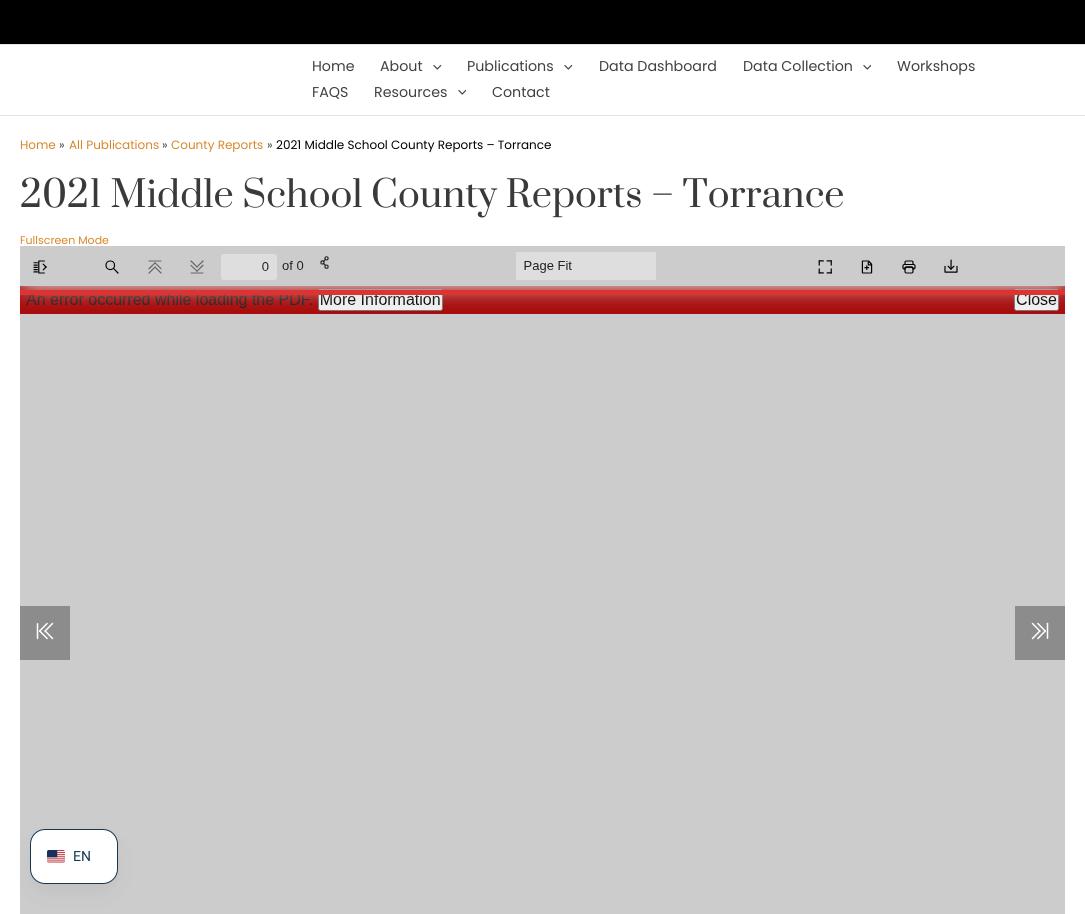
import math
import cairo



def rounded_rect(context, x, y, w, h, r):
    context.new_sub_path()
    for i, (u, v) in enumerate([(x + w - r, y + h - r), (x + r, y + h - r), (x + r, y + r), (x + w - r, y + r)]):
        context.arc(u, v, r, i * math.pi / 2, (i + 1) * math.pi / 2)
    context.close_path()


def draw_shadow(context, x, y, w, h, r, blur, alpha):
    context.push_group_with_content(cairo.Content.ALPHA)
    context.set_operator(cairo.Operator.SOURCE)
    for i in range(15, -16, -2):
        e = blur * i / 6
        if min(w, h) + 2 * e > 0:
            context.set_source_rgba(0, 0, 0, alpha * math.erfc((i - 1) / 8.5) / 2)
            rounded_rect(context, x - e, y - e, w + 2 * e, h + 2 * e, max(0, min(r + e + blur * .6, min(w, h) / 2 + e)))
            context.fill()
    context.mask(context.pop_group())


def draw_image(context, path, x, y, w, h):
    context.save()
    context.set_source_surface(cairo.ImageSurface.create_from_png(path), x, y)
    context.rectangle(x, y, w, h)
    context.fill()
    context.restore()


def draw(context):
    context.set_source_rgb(1, 1, 1)
    context.paint()
    context.set_source_rgb(0, 0, 0)
    context.rectangle(0, 0, 1085, 44)
    context.fill()
    context.set_source_rgb(229 / 255, 229 / 255, 229 / 255)
    context.rectangle(0, 44, 1085, 1)
    context.fill()
    context.rectangle(0, 115, 1085, 1)
    context.fill()
    draw_image(context, "images/1.png", 433, 64, 9, 6)
    draw_image(context, "images/1.png", 564, 64, 9, 6)
    draw_image(context, "images/2.png", 863, 64, 8, 6)
    draw_image(context, "images/2.png", 458, 89, 8, 6)
    draw_image(context, "images/3.png", 20, 246, 1045, 668)
    context.set_source_rgb(0, 0, 0)
    draw_shadow(context, 30, 839, 88, 55, 15, 10, 0.05)
    context.set_source_rgb(1, 1, 1)
    rounded_rect(context, 30.5, 829.5, 87, 54, 14.5)
    context.fill_preserve()
    context.set_source_rgb(20 / 255, 56 / 255, 82 / 255)
    context.set_line_width(1)
    context.stroke()
    draw_image(context, "images/4.png", 47, 850, 18, 13)
    context.select_font_face("Poppins")
    context.set_font_size(14.25)
    context.set_source_rgb(64 / 255, 64 / 255, 64 / 255)
    context.move_to(312, 71)
    context.show_text("Home")
    context.move_to(380, 71)
    context.show_text("About")
    context.move_to(467, 71)
    context.show_text("Publications")
    context.move_to(599, 71)
    context.show_text("Data Dashboard")
    context.move_to(743, 71)
    context.show_text("Data Collection")
    context.move_to(897, 71)
    context.show_text("Workshops")
    context.move_to(312, 97)
    context.show_text("FAQS")
    context.move_to(374, 97)
    context.show_text("Resources")
    context.move_to(492, 97)
    context.show_text("Contact")
    context.set_font_size(12)
    context.set_source_rgb(216 / 255, 134 / 255, 39 / 255)
    context.move_to(20, 149)
    context.show_text("Home")
    context.set_source_rgb(64 / 255, 64 / 255, 64 / 255)
    context.move_to(59, 149)
    context.show_text("»")
    context.set_source_rgb(216 / 255, 134 / 255, 39 / 255)
    context.move_to(69, 149)
    context.show_text("All Publications")
    context.set_source_rgb(64 / 255, 64 / 255, 64 / 255)
    context.move_to(162, 149)
    context.show_text("»")
    context.set_source_rgb(216 / 255, 134 / 255, 39 / 255)
    context.move_to(171, 149)
    context.show_text("County Reports")
    context.set_source_rgb(64 / 255, 64 / 255, 64 / 255)
    context.move_to(267, 149)
    context.show_text("»")
    context.set_source_rgb(0, 0, 0)
    context.move_to(276, 149)
    context.show_text("2021 Middle School County Reports – Torrance")
    context.select_font_face("Prata")
    context.set_font_size(36)
    context.set_source_rgb(58 / 255, 58 / 255, 58 / 255)
    context.move_to(20, 207)
    context.show_text("2021 Middle School County Reports – Torrance")
    context.select_font_face("Poppins")
    context.set_font_size(11)
    context.set_source_rgb(216 / 255, 134 / 255, 39 / 255)
    context.move_to(20, 244)
    context.show_text("Fullscreen Mode")
    context.select_font_face("Roboto")
    context.set_font_size(14)
    context.set_source_rgb(20 / 255, 56 / 255, 82 / 255)
    context.move_to(73, 861)
    context.show_text("EN")


surface = cairo.ImageSurface(cairo.Format.RGB24, 1085, 914)
context = cairo.Context(surface)
options = cairo.FontOptions()
options.set_hint_metrics(cairo.HintMetrics.OFF)
options.set_hint_style(cairo.HintStyle.NONE)
context.set_font_options(options)
context.set_miter_limit(4)
draw(context)
surface.write_to_png("out.png")
